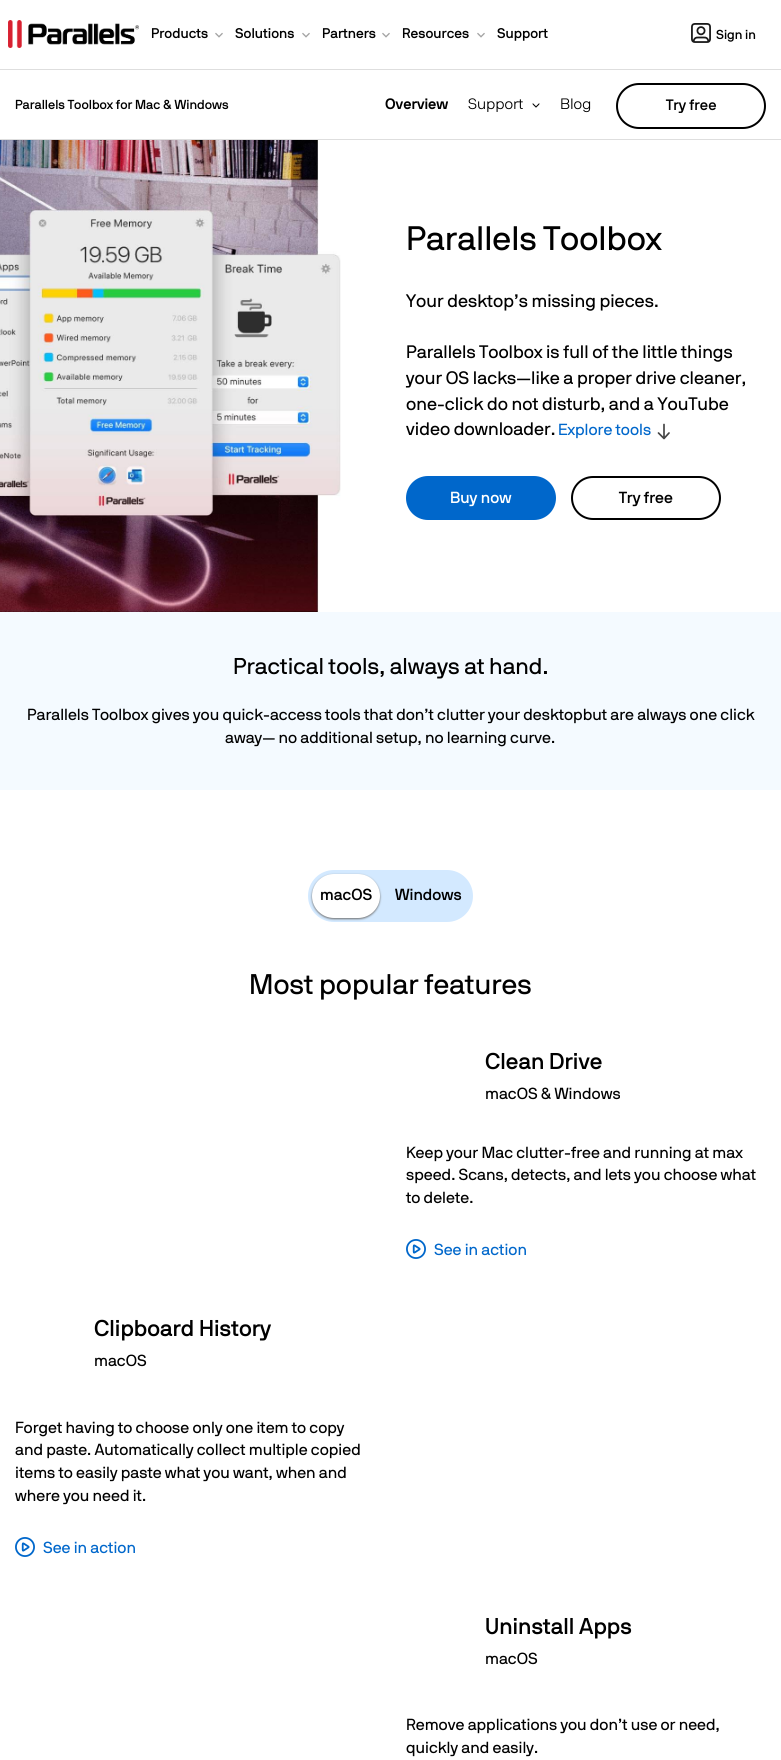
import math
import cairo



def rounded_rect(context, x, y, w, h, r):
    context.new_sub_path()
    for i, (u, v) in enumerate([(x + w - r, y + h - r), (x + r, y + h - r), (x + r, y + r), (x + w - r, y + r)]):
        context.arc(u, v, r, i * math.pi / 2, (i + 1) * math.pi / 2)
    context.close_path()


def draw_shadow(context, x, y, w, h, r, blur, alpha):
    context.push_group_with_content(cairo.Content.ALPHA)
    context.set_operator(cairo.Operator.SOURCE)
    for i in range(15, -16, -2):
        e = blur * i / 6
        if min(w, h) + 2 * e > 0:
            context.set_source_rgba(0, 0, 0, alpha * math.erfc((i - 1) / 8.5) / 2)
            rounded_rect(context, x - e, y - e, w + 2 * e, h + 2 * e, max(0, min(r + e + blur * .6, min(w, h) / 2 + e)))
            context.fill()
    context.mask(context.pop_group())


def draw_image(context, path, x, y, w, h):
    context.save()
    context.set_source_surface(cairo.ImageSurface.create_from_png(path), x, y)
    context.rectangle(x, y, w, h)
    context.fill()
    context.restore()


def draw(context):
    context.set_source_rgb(1, 1, 1)
    context.paint()
    context.set_source_rgb(222 / 255, 222 / 255, 222 / 255)
    context.rectangle(0, 69, 781, 1)
    context.fill()
    draw_image(context, "images/1.png", 8, 20, 131, 28)
    draw_image(context, "images/2.png", 215, 32, 8, 6)
    draw_image(context, "images/2.png", 302, 32, 8, 6)
    draw_image(context, "images/2.png", 382, 32, 8, 6)
    draw_image(context, "images/2.png", 477, 32, 8, 6)
    draw_image(context, "images/3.png", 691, 23, 20, 20)
    context.rectangle(0, 139, 781, 1)
    context.fill()
    draw_image(context, "images/4.png", 532, 103, 8, 5)
    rounded_rect(context, 617, 84, 148, 44, 22)
    context.set_source_rgb(0, 0, 0)
    context.stroke()
    draw_image(context, "images/5.png", 0, 140, 341, 472)
    context.save()
    context.new_path()
    context.move_to(671.5, 423.5)
    context.line_to(671.5, 439.5)
    context.line_to(655.5, 439.5)
    context.line_to(655.5, 423.5)
    context.close_path()
    context.clip()
    context.new_path()
    context.move_to(664, 424.5)
    context.line_to(664, 438.5)
    context.move_to(664, 438.5)
    context.line_to(669, 433)
    context.move_to(664, 438.5)
    context.line_to(658.5, 433)
    context.set_source_rgb(69 / 255, 69 / 255, 69 / 255)
    context.set_line_width(1.7)
    context.set_line_cap(cairo.LineCap.ROUND)
    context.set_line_join(cairo.LineJoin.ROUND)
    context.stroke()
    context.restore()
    context.set_source_rgb(0, 103 / 255, 203 / 255)
    rounded_rect(context, 407, 477, 148, 42, 21)
    context.fill_preserve()
    context.stroke()
    rounded_rect(context, 572, 477, 148, 42, 21)
    context.set_source_rgb(0, 0, 0)
    context.stroke()
    context.set_source_rgb(244 / 255, 250 / 255, 1)
    context.rectangle(0, 612, 781, 178)
    context.fill()
    context.set_source_rgb(211 / 255, 233 / 255, 1)
    rounded_rect(context, 308, 870, 165, 52, 26)
    context.fill()
    context.set_source_rgb(112 / 255, 112 / 255, 112 / 255)
    draw_shadow(context, 312, 875, 68, 44, 22, 1, 1)
    context.set_source_rgb(1, 1, 1)
    rounded_rect(context, 312, 874, 68, 44, 22)
    context.fill()
    draw_image(context, "images/6.png", 406, 1239, 20, 20)
    draw_image(context, "images/6.png", 15, 1537, 20, 20)
    context.select_font_face("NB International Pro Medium")
    context.set_font_size(14)
    context.set_source_rgb(0, 0, 0)
    context.move_to(151, 38)
    context.show_text("Products")
    context.move_to(235, 38)
    context.show_text("Solutions")
    context.move_to(322, 38)
    context.show_text("Partners")
    context.move_to(402, 38)
    context.show_text("Resources")
    context.move_to(497, 38)
    context.show_text("Support")
    context.set_font_size(13)
    context.move_to(716, 39)
    context.show_text("Sign in")
    context.move_to(15, 109)
    context.show_text("Parallels Toolbox for Mac & Windows")
    context.select_font_face("NB International Pro", cairo.FontSlant.NORMAL, cairo.FontWeight.BOLD)
    context.set_font_size(15)
    context.move_to(385, 109)
    context.show_text("Overview")
    context.select_font_face("NB International Pro Light")
    context.move_to(468, 109)
    context.show_text("Support")
    context.move_to(560, 109)
    context.show_text("Blog")
    context.select_font_face("NB International Pro Medium")
    context.move_to(666, 110)
    context.show_text("Try free")
    context.select_font_face("NB International Pro")
    context.set_font_size(33.75)
    context.move_to(406, 250)
    context.show_text("Parallels Toolbox")
    context.set_font_size(18)
    context.move_to(406, 307)
    context.show_text("Your desktop’s missing pieces.")
    context.move_to(406, 358)
    context.show_text("Parallels Toolbox is full of the little things")
    context.move_to(406, 384)
    context.show_text("your OS lacks—like a proper drive cleaner,")
    context.move_to(406, 410)
    context.show_text("one-click do not disturb, and a YouTube")
    context.move_to(406, 435)
    context.show_text("video downloader.")
    context.set_font_size(16)
    context.set_source_rgb(0, 103 / 255, 203 / 255)
    context.move_to(558, 435)
    context.show_text("Explore tools")
    context.select_font_face("NB International Pro Medium")
    context.set_source_rgb(1, 1, 1)
    context.move_to(450, 503)
    context.show_text("Buy now")
    context.set_source_rgb(0, 0, 0)
    context.move_to(619, 503)
    context.show_text("Try free")
    context.select_font_face("NB International Pro")
    context.set_font_size(22.75)
    context.move_to(233, 674)
    context.show_text("Practical tools, always at hand.")
    context.set_font_size(16)
    context.move_to(27, 720)
    context.show_text("Parallels Toolbox gives you quick-access tools that don’t clutter your desktopbut are always one click")
    context.move_to(225, 743)
    context.show_text("away— no additional setup, no learning curve.")
    context.select_font_face("NB International Pro Medium")
    context.move_to(320, 900)
    context.show_text("macOS")
    context.move_to(395, 900)
    context.show_text("Windows")
    context.select_font_face("NB International Pro")
    context.set_font_size(28.25)
    context.move_to(249, 994)
    context.show_text("Most popular features")
    context.select_font_face("NB International Pro Medium")
    context.set_font_size(22.75)
    context.move_to(485, 1069)
    context.show_text("Clean Drive")
    context.select_font_face("NB International Pro")
    context.set_font_size(16)
    context.move_to(485, 1099)
    context.show_text("macOS & Windows")
    context.move_to(406, 1158)
    context.show_text("Keep your Mac clutter-free and running at max")
    context.move_to(406, 1180)
    context.show_text("speed. Scans, detects, and lets you choose what")
    context.move_to(406, 1203)
    context.show_text("to delete.")
    context.set_source_rgb(0, 103 / 255, 203 / 255)
    context.move_to(434, 1255)
    context.show_text("See in action")
    context.select_font_face("NB International Pro Medium")
    context.set_font_size(22.75)
    context.set_source_rgb(0, 0, 0)
    context.move_to(94, 1336)
    context.show_text("Clipboard History")
    context.select_font_face("NB International Pro")
    context.set_font_size(16)
    context.move_to(94, 1366)
    context.show_text("macOS")
    context.move_to(15, 1433)
    context.show_text("Forget having to choose only one item to copy")
    context.move_to(15, 1455)
    context.show_text("and paste. Automatically collect multiple copied")
    context.move_to(15, 1478)
    context.show_text("items to easily paste what you want, when and")
    context.move_to(15, 1501)
    context.show_text("where you need it.")
    context.set_source_rgb(0, 103 / 255, 203 / 255)
    context.move_to(43, 1553)
    context.show_text("See in action")
    context.select_font_face("NB International Pro Medium")
    context.set_font_size(22.75)
    context.set_source_rgb(0, 0, 0)
    context.move_to(485, 1634)
    context.show_text("Uninstall Apps")
    context.select_font_face("NB International Pro")
    context.set_font_size(16)
    context.move_to(485, 1664)
    context.show_text("macOS")
    context.move_to(406, 1730)
    context.show_text("Remove applications you don’t use or need,")
    context.move_to(406, 1753)
    context.show_text("quickly and easily.")


surface = cairo.ImageSurface(cairo.Format.RGB24, 781, 1760)
context = cairo.Context(surface)
options = cairo.FontOptions()
options.set_hint_metrics(cairo.HintMetrics.OFF)
options.set_hint_style(cairo.HintStyle.NONE)
context.set_font_options(options)
context.set_miter_limit(4)
draw(context)
surface.write_to_png("out.png")
